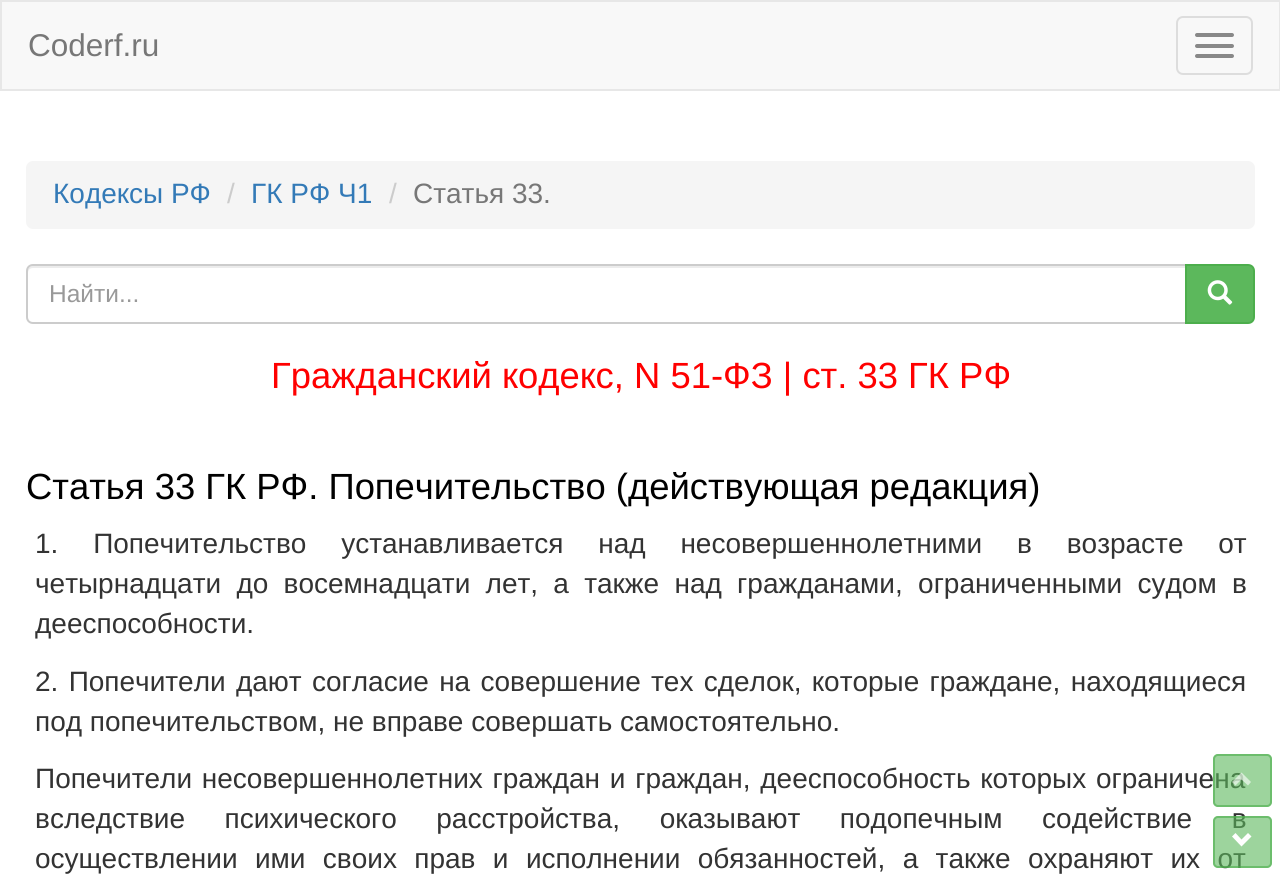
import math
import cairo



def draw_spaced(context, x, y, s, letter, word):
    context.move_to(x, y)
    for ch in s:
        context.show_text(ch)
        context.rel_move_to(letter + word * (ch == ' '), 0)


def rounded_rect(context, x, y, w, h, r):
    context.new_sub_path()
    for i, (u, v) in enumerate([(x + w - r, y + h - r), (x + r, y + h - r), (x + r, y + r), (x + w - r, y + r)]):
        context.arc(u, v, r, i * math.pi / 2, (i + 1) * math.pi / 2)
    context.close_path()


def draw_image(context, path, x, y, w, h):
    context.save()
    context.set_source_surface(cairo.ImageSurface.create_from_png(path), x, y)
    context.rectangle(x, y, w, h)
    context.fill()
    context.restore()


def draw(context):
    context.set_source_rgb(1, 1, 1)
    context.paint()
    context.set_source_rgb(248 / 255, 248 / 255, 248 / 255)
    context.rectangle(1, 1, 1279, 89)
    context.fill_preserve()
    context.set_source_rgb(231 / 255, 231 / 255, 231 / 255)
    context.stroke()
    rounded_rect(context, 1177, 17, 75, 57, 6)
    context.set_source_rgb(221 / 255, 221 / 255, 221 / 255)
    context.stroke()
    context.set_source_rgb(136 / 255, 136 / 255, 136 / 255)
    rounded_rect(context, 1195, 33, 39, 4, 2)
    context.fill()
    rounded_rect(context, 1195, 44, 39, 4, 2)
    context.fill()
    rounded_rect(context, 1195, 54, 39, 4, 2)
    context.fill()
    context.set_source_rgb(245 / 255, 245 / 255, 245 / 255)
    rounded_rect(context, 26, 161, 1229, 68, 7)
    context.fill()
    context.set_source_rgb(236 / 255, 236 / 255, 236 / 255)
    context.new_path()
    context.move_to(33, 268)
    context.line_to(1185, 268)
    context.line_to(1185, 266)
    context.line_to(33, 266)
    context.curve_to(30, 266, 28, 268, 28, 271)
    context.line_to(28, 273)
    context.curve_to(28, 270, 30, 268, 33, 268)
    context.close_path()
    context.fill()
    context.new_path()
    context.move_to(33, 265)
    context.line_to(1186, 265)
    context.line_to(1186, 323)
    context.line_to(33, 323)
    context.curve_to(29.5, 323, 27, 320.5, 27, 317)
    context.line_to(27, 271)
    context.curve_to(27, 267.5, 29.5, 265, 33, 265)
    context.close_path()
    context.set_source_rgb(204 / 255, 204 / 255, 204 / 255)
    context.stroke()
    context.set_source_rgb(92 / 255, 184 / 255, 92 / 255)
    context.new_path()
    context.move_to(1186, 265)
    context.line_to(1248, 265)
    context.curve_to(1251.5, 265, 1254, 267.5, 1254, 271)
    context.line_to(1254, 317)
    context.curve_to(1254, 320.5, 1251.5, 323, 1248, 323)
    context.line_to(1186, 323)
    context.close_path()
    context.fill_preserve()
    context.set_source_rgb(76 / 255, 174 / 255, 76 / 255)
    context.stroke()
    draw_image(context, "images/1.png", 1207, 280, 26, 25)
    context.select_font_face("Liberation Sans")
    context.set_font_size(31.5)
    context.set_source_rgb(119 / 255, 119 / 255, 119 / 255)
    context.move_to(28, 56)
    context.show_text("Coderf.ru")
    context.set_font_size(28)
    context.set_source_rgb(51 / 255, 122 / 255, 183 / 255)
    context.move_to(53, 203)
    context.show_text("Кодексы РФ")
    context.set_source_rgb(204 / 255, 204 / 255, 204 / 255)
    context.move_to(227, 203)
    context.show_text("/")
    context.set_source_rgb(51 / 255, 122 / 255, 183 / 255)
    context.move_to(251, 203)
    context.show_text("ГК РФ Ч1")
    context.set_source_rgb(204 / 255, 204 / 255, 204 / 255)
    context.move_to(389, 203)
    context.show_text("/")
    context.set_source_rgb(119 / 255, 119 / 255, 119 / 255)
    context.move_to(413, 203)
    context.show_text("Статья 33.")
    context.set_font_size(24.5)
    context.set_source_rgb(153 / 255, 153 / 255, 153 / 255)
    context.move_to(49, 302)
    context.show_text("Найти...")
    context.set_font_size(36.4)
    context.set_source_rgb(1, 0, 0)
    context.move_to(271, 388)
    context.show_text("Гражданский кодекс, N 51-ФЗ | ст. 33 ГК РФ")
    context.set_source_rgb(0, 0, 0)
    context.move_to(26, 499)
    context.show_text("Статья 33 ГК РФ. Попечительство (действующая редакция)")
    context.set_font_size(28)
    context.set_source_rgb(51 / 255, 51 / 255, 51 / 255)
    draw_spaced(context, 35, 553, "1. Попечительство устанавливается над несовершеннолетними в возрасте от", 0, 27)
    draw_spaced(context, 35, 593, "четырнадцати до восемнадцати лет, а также над гражданами, ограниченными судом в", 0, 7.5)
    context.move_to(35, 633)
    context.show_text("дееспособности.")
    draw_spaced(context, 35, 691, "2. Попечители дают согласие на совершение тех сделок, которые граждане, находящиеся", 0, 2.5)
    context.move_to(35, 731)
    context.show_text("под попечительством, не вправе совершать самостоятельно.")
    draw_spaced(context, 35, 788, "Попечители несовершеннолетних граждан и граждан, дееспособность которых ограничена", 0, 2)
    draw_spaced(context, 35, 828, "вследствие психического расстройства, оказывают подопечным содействие в", 0, 31.75)
    draw_spaced(context, 35, 868, "осуществлении ими своих прав и исполнении обязанностей, а также охраняют их от", 0, 9.6)
    context.set_source_rgba(92 / 255, 184 / 255, 92 / 255, 0.6)
    rounded_rect(context, 1213, 754, 59, 53, 5)
    context.fill()
    rounded_rect(context, 1214, 755, 57, 51, 4)
    context.set_source_rgba(76 / 255, 174 / 255, 76 / 255, 0.6)
    context.stroke()
    context.set_source_rgba(1, 1, 1, 0.6)
    context.new_path()
    context.move_to(1251, 782)
    context.line_to(1248, 785.5)
    context.line_to(1241.5, 779.5)
    context.line_to(1235.5, 785.5)
    context.line_to(1232, 782)
    context.line_to(1241.5, 772.5)
    context.close_path()
    context.fill()
    context.set_source_rgba(92 / 255, 184 / 255, 92 / 255, 0.6)
    rounded_rect(context, 1213, 816, 59, 52, 5)
    context.fill()
    rounded_rect(context, 1214, 817, 57, 50, 4)
    context.set_source_rgba(76 / 255, 174 / 255, 76 / 255, 0.6)
    context.stroke()
    context.set_source_rgb(1, 1, 1)
    context.new_path()
    context.move_to(1251.5, 836.5)
    context.line_to(1241.5, 846.5)
    context.line_to(1232, 836.5)
    context.line_to(1235.5, 833)
    context.line_to(1241.5, 839.5)
    context.line_to(1248, 833)
    context.close_path()
    context.fill()


surface = cairo.ImageSurface(cairo.Format.RGB24, 1280, 876)
context = cairo.Context(surface)
options = cairo.FontOptions()
options.set_hint_metrics(cairo.HintMetrics.OFF)
options.set_hint_style(cairo.HintStyle.NONE)
context.set_font_options(options)
context.set_miter_limit(4)
draw(context)
surface.write_to_png("out.png")
